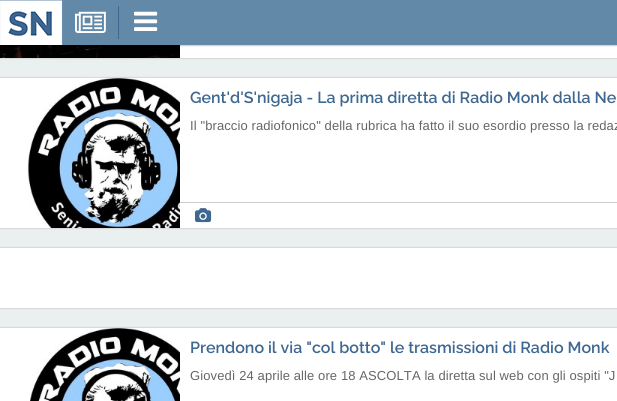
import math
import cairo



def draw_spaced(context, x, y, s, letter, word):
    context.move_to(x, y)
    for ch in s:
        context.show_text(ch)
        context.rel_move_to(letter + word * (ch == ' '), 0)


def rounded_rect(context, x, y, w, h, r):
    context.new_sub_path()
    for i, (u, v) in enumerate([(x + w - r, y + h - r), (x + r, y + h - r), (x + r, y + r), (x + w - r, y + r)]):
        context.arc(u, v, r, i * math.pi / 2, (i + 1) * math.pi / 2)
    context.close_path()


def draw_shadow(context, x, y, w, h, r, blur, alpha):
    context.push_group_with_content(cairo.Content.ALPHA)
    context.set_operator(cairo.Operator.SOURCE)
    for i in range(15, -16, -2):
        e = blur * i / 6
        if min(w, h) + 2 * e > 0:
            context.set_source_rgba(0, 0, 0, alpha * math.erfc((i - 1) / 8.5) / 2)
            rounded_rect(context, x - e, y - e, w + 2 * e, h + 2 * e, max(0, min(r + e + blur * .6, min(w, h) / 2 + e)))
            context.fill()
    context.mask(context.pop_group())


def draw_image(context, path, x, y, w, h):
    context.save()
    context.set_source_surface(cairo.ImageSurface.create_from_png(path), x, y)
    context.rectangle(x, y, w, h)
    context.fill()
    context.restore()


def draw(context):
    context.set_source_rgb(234 / 255, 239 / 255, 239 / 255)
    context.paint()
    context.set_source_rgb(209 / 255, 209 / 255, 209 / 255)
    draw_shadow(context, -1, -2, 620, 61, 0, 0.5, 0.75)
    context.set_source_rgb(1, 1, 1)
    context.rectangle(180, 45, 437, 13)
    context.fill()
    draw_image(context, "images/4.png", 0, 45, 180, 13)
    context.set_source_rgb(0, 0, 0)
    draw_shadow(context, 0, 1, 617, 45, 0, 0.5, 0.2)
    context.set_source_rgb(99 / 255, 137 / 255, 168 / 255)
    context.rectangle(0, 0, 617, 45)
    context.fill()
    draw_image(context, "images/1.png", 0, 0, 63, 45)
    draw_image(context, "images/2.png", 75, 11, 31, 22)
    context.set_source_rgb(62 / 255, 104 / 255, 146 / 255)
    context.rectangle(118, 6, 1, 33)
    context.fill()
    draw_image(context, "images/3.png", 134, 11, 24, 20)
    context.set_source_rgb(209 / 255, 209 / 255, 209 / 255)
    draw_shadow(context, -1, 77, 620, 152, 0, 0.5, 0.75)
    context.set_source_rgb(1, 1, 1)
    context.rectangle(0, 78, 617, 150)
    context.fill()
    draw_image(context, "images/5.png", 27, 78, 153, 150)
    context.set_source_rgb(204 / 255, 204 / 255, 204 / 255)
    context.rectangle(180, 202, 437, 1)
    context.fill()
    draw_image(context, "images/6.png", 195, 208, 17, 15)
    context.set_source_rgb(209 / 255, 209 / 255, 209 / 255)
    draw_shadow(context, -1, 247, 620, 62, 0, 0.5, 0.75)
    context.set_source_rgb(1, 1, 1)
    context.rectangle(0, 248, 617, 60)
    context.fill()
    context.set_source_rgb(209 / 255, 209 / 255, 209 / 255)
    draw_shadow(context, -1, 327, 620, 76, 0, 0.5, 0.75)
    context.set_source_rgb(1, 1, 1)
    context.rectangle(0, 328, 617, 73)
    context.fill()
    draw_image(context, "images/7.png", 30, 328, 150, 73)
    context.select_font_face("Raleway SemiBold")
    context.set_font_size(16)
    context.set_source_rgb(62 / 255, 103 / 255, 145 / 255)
    context.move_to(190, 103)
    context.show_text("Gent'd'S'nigaja - La prima diretta di Radio Monk dalla Ne")
    context.select_font_face("Liberation Sans")
    context.set_font_size(13)
    context.set_source_rgb(102 / 255, 102 / 255, 102 / 255)
    draw_spaced(context, 190, 130, "Il \"braccio radiofonico\" della rubrica ha fatto il suo esordio presso la redaz", 0.1, 0)
    context.select_font_face("Raleway SemiBold")
    context.set_font_size(16)
    context.set_source_rgb(62 / 255, 103 / 255, 145 / 255)
    context.move_to(190, 353)
    context.show_text("Prendono il via \"col botto\" le trasmissioni di Radio Monk")
    context.select_font_face("Liberation Sans")
    context.set_font_size(13)
    context.set_source_rgb(102 / 255, 102 / 255, 102 / 255)
    draw_spaced(context, 190, 380, "Giovedì 24 aprile alle ore 18 ASCOLTA la diretta sul web con gli ospiti \"J", 0.1, 0)


surface = cairo.ImageSurface(cairo.Format.RGB24, 617, 401)
context = cairo.Context(surface)
options = cairo.FontOptions()
options.set_hint_metrics(cairo.HintMetrics.OFF)
options.set_hint_style(cairo.HintStyle.NONE)
context.set_font_options(options)
context.set_miter_limit(4)
draw(context)
surface.write_to_png("out.png")
